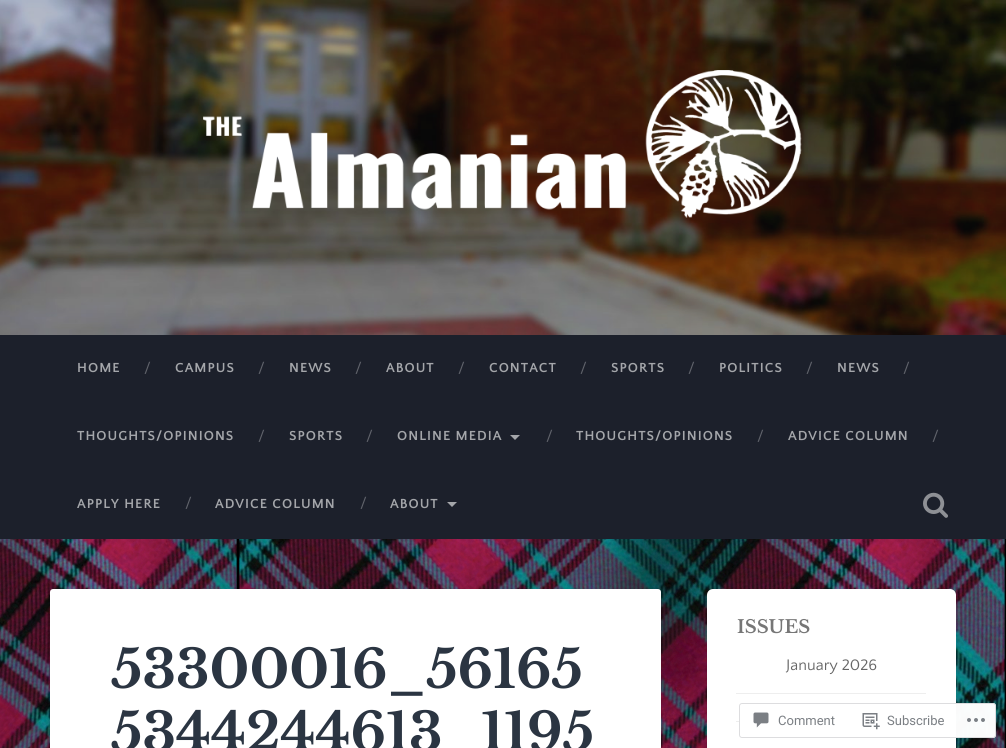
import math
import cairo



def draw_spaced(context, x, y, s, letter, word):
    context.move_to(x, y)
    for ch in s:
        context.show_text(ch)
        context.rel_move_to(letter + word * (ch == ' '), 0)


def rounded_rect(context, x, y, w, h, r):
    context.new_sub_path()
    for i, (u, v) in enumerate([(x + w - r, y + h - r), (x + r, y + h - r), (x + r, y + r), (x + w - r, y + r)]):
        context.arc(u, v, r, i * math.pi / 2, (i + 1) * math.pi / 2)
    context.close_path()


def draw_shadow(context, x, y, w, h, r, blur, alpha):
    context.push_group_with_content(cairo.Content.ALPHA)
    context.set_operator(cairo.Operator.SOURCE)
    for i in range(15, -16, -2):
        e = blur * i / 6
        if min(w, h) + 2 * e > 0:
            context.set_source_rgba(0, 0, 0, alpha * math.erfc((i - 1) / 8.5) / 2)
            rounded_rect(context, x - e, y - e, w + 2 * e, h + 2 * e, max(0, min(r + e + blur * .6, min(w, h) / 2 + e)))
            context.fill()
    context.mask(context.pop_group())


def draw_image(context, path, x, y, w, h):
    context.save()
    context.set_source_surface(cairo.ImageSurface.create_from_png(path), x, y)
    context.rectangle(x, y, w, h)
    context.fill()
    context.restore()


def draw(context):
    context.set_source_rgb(1, 1, 1)
    context.paint()
    draw_image(context, "images/1.png", 0, 539, 1006, 209)
    draw_image(context, "images/2.png", 0, 0, 1006, 335)
    draw_image(context, "images/3.png", 203, 70, 599, 148)
    context.set_source_rgb(28 / 255, 32 / 255, 43 / 255)
    context.rectangle(0, 335, 1006, 204)
    context.fill()
    context.set_source_rgb(164 / 255, 166 / 255, 170 / 255)
    context.new_path()
    context.move_to(510, 435)
    context.line_to(520, 435)
    context.line_to(515, 440)
    context.close_path()
    context.fill()
    context.new_path()
    context.move_to(447, 502)
    context.line_to(457, 502)
    context.line_to(452, 507)
    context.close_path()
    context.fill()
    draw_image(context, "images/4.png", 923, 492, 25, 26)
    context.set_source_rgb(0, 0, 0)
    draw_shadow(context, 50, 590, 611, 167, 3, 2, 0.1)
    context.set_source_rgb(1, 1, 1)
    rounded_rect(context, 50, 589, 611, 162, 3)
    context.fill()
    context.set_source_rgb(0, 0, 0)
    draw_shadow(context, 707, 590, 249, 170, 6, 2, 0.1)
    context.set_source_rgb(1, 1, 1)
    rounded_rect(context, 707, 589, 249, 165, 6)
    context.fill()
    context.set_source_rgb(238 / 255, 238 / 255, 238 / 255)
    context.rectangle(736, 693, 190, 1)
    context.fill()
    context.rectangle(736, 721, 190, 1)
    context.fill()
    context.set_source_rgba(1, 1, 1, 0.98)
    rounded_rect(context, 739, 703, 257, 35, 3)
    context.fill()
    rounded_rect(context, 739.5, 703.5, 256, 34, 2.5)
    context.set_source_rgba(220 / 255, 220 / 255, 222 / 255, 0.98)
    context.set_line_width(1)
    context.stroke()
    draw_image(context, "images/5.png", 753, 712, 16, 16)
    draw_image(context, "images/6.png", 862, 713, 18, 17)
    draw_image(context, "images/7.png", 967, 718, 18, 4)
    context.select_font_face("Quattrocento Sans", cairo.FontSlant.NORMAL, cairo.FontWeight.BOLD)
    context.set_font_size(13.75)
    context.set_source_rgb(164 / 255, 166 / 255, 170 / 255)
    draw_spaced(context, 77, 372, "HOME", 1, 0)
    context.select_font_face("Quattrocento Sans")
    context.set_font_size(16)
    context.set_source_rgb(96 / 255, 99 / 255, 107 / 255)
    context.move_to(144, 373)
    context.show_text("/")
    context.select_font_face("Quattrocento Sans", cairo.FontSlant.NORMAL, cairo.FontWeight.BOLD)
    context.set_font_size(13.75)
    context.set_source_rgb(164 / 255, 166 / 255, 170 / 255)
    draw_spaced(context, 175, 372, "CAMPUS", 1, 0)
    context.select_font_face("Quattrocento Sans")
    context.set_font_size(16)
    context.set_source_rgb(96 / 255, 99 / 255, 107 / 255)
    context.move_to(258, 373)
    context.show_text("/")
    context.select_font_face("Quattrocento Sans", cairo.FontSlant.NORMAL, cairo.FontWeight.BOLD)
    context.set_font_size(13.75)
    context.set_source_rgb(164 / 255, 166 / 255, 170 / 255)
    draw_spaced(context, 289, 372, "NEWS", 1, 0)
    context.select_font_face("Quattrocento Sans")
    context.set_font_size(16)
    context.set_source_rgb(96 / 255, 99 / 255, 107 / 255)
    context.move_to(355, 373)
    context.show_text("/")
    context.select_font_face("Quattrocento Sans", cairo.FontSlant.NORMAL, cairo.FontWeight.BOLD)
    context.set_font_size(13.75)
    context.set_source_rgb(164 / 255, 166 / 255, 170 / 255)
    draw_spaced(context, 386, 372, "ABOUT", 1, 0)
    context.select_font_face("Quattrocento Sans")
    context.set_font_size(16)
    context.set_source_rgb(96 / 255, 99 / 255, 107 / 255)
    context.move_to(458, 373)
    context.show_text("/")
    context.select_font_face("Quattrocento Sans", cairo.FontSlant.NORMAL, cairo.FontWeight.BOLD)
    context.set_font_size(13.75)
    context.set_source_rgb(164 / 255, 166 / 255, 170 / 255)
    draw_spaced(context, 489, 372, "CONTACT", 1, 0)
    context.select_font_face("Quattrocento Sans")
    context.set_font_size(16)
    context.set_source_rgb(96 / 255, 99 / 255, 107 / 255)
    context.move_to(580, 373)
    context.show_text("/")
    context.select_font_face("Quattrocento Sans", cairo.FontSlant.NORMAL, cairo.FontWeight.BOLD)
    context.set_font_size(13.75)
    context.set_source_rgb(164 / 255, 166 / 255, 170 / 255)
    draw_spaced(context, 611, 372, "SPORTS", 1, 0)
    context.select_font_face("Quattrocento Sans")
    context.set_font_size(16)
    context.set_source_rgb(96 / 255, 99 / 255, 107 / 255)
    context.move_to(688, 373)
    context.show_text("/")
    context.select_font_face("Quattrocento Sans", cairo.FontSlant.NORMAL, cairo.FontWeight.BOLD)
    context.set_font_size(13.75)
    context.set_source_rgb(164 / 255, 166 / 255, 170 / 255)
    draw_spaced(context, 719, 372, "POLITICS", 1, 0)
    context.select_font_face("Quattrocento Sans")
    context.set_font_size(16)
    context.set_source_rgb(96 / 255, 99 / 255, 107 / 255)
    context.move_to(806, 373)
    context.show_text("/")
    context.select_font_face("Quattrocento Sans", cairo.FontSlant.NORMAL, cairo.FontWeight.BOLD)
    context.set_font_size(13.75)
    context.set_source_rgb(164 / 255, 166 / 255, 170 / 255)
    draw_spaced(context, 837, 372, "NEWS", 1, 0)
    context.select_font_face("Quattrocento Sans")
    context.set_font_size(16)
    context.set_source_rgb(96 / 255, 99 / 255, 107 / 255)
    context.move_to(903, 373)
    context.show_text("/")
    context.select_font_face("Quattrocento Sans", cairo.FontSlant.NORMAL, cairo.FontWeight.BOLD)
    context.set_font_size(13.75)
    context.set_source_rgb(164 / 255, 166 / 255, 170 / 255)
    draw_spaced(context, 77, 440, "THOUGHTS/OPINIONS", 1, 0)
    context.select_font_face("Quattrocento Sans")
    context.set_font_size(16)
    context.set_source_rgb(96 / 255, 99 / 255, 107 / 255)
    context.move_to(258, 441)
    context.show_text("/")
    context.select_font_face("Quattrocento Sans", cairo.FontSlant.NORMAL, cairo.FontWeight.BOLD)
    context.set_font_size(13.75)
    context.set_source_rgb(164 / 255, 166 / 255, 170 / 255)
    draw_spaced(context, 289, 440, "SPORTS", 1, 0)
    context.select_font_face("Quattrocento Sans")
    context.set_font_size(16)
    context.set_source_rgb(96 / 255, 99 / 255, 107 / 255)
    context.move_to(366, 441)
    context.show_text("/")
    context.select_font_face("Quattrocento Sans", cairo.FontSlant.NORMAL, cairo.FontWeight.BOLD)
    context.set_font_size(13.75)
    context.set_source_rgb(164 / 255, 166 / 255, 170 / 255)
    draw_spaced(context, 397, 440, "ONLINE MEDIA", 1, 0)
    context.select_font_face("Quattrocento Sans")
    context.set_font_size(16)
    context.set_source_rgb(96 / 255, 99 / 255, 107 / 255)
    context.move_to(546, 441)
    context.show_text("/")
    context.select_font_face("Quattrocento Sans", cairo.FontSlant.NORMAL, cairo.FontWeight.BOLD)
    context.set_font_size(13.75)
    context.set_source_rgb(164 / 255, 166 / 255, 170 / 255)
    draw_spaced(context, 576, 440, "THOUGHTS/OPINIONS", 1, 0)
    context.select_font_face("Quattrocento Sans")
    context.set_font_size(16)
    context.set_source_rgb(96 / 255, 99 / 255, 107 / 255)
    context.move_to(757, 441)
    context.show_text("/")
    context.select_font_face("Quattrocento Sans", cairo.FontSlant.NORMAL, cairo.FontWeight.BOLD)
    context.set_font_size(13.75)
    context.set_source_rgb(164 / 255, 166 / 255, 170 / 255)
    draw_spaced(context, 788, 440, "ADVICE COLUMN", 1, 0)
    context.select_font_face("Quattrocento Sans")
    context.set_font_size(16)
    context.set_source_rgb(96 / 255, 99 / 255, 107 / 255)
    context.move_to(932, 441)
    context.show_text("/")
    context.select_font_face("Quattrocento Sans", cairo.FontSlant.NORMAL, cairo.FontWeight.BOLD)
    context.set_font_size(13.75)
    context.set_source_rgb(164 / 255, 166 / 255, 170 / 255)
    draw_spaced(context, 77, 508, "APPLY HERE", 1, 0)
    context.select_font_face("Quattrocento Sans")
    context.set_font_size(16)
    context.set_source_rgb(96 / 255, 99 / 255, 107 / 255)
    context.move_to(185, 508)
    context.show_text("/")
    context.select_font_face("Quattrocento Sans", cairo.FontSlant.NORMAL, cairo.FontWeight.BOLD)
    context.set_font_size(13.75)
    context.set_source_rgb(164 / 255, 166 / 255, 170 / 255)
    draw_spaced(context, 215, 508, "ADVICE COLUMN", 1, 0)
    context.select_font_face("Quattrocento Sans")
    context.set_font_size(16)
    context.set_source_rgb(96 / 255, 99 / 255, 107 / 255)
    context.move_to(360, 508)
    context.show_text("/")
    context.select_font_face("Quattrocento Sans", cairo.FontSlant.NORMAL, cairo.FontWeight.BOLD)
    context.set_font_size(13.75)
    context.set_source_rgb(164 / 255, 166 / 255, 170 / 255)
    draw_spaced(context, 390, 508, "ABOUT", 1, 0)
    context.select_font_face("Libre Baskerville", cairo.FontSlant.NORMAL, cairo.FontWeight.BOLD)
    context.set_font_size(52.75)
    context.set_source_rgb(43 / 255, 53 / 255, 66 / 255)
    context.move_to(111, 688)
    context.show_text("53300016_56165")
    context.move_to(111, 751)
    context.show_text("5344244613_1195")
    context.set_font_size(18)
    context.set_source_rgb(118 / 255, 118 / 255, 118 / 255)
    context.move_to(737, 633)
    context.show_text("ISSUES")
    context.select_font_face("Quattrocento Sans")
    context.set_font_size(16)
    context.set_source_rgb(102 / 255, 102 / 255, 102 / 255)
    context.move_to(786, 670)
    context.show_text("January 2026")
    context.select_font_face("Roboto")
    context.set_font_size(13)
    context.set_source_rgb(123 / 255, 127 / 255, 132 / 255)
    context.move_to(778, 725)
    context.show_text("Comment")
    context.move_to(887, 725)
    context.show_text("Subscribe")


surface = cairo.ImageSurface(cairo.Format.RGB24, 1006, 748)
context = cairo.Context(surface)
options = cairo.FontOptions()
options.set_hint_metrics(cairo.HintMetrics.OFF)
options.set_hint_style(cairo.HintStyle.NONE)
context.set_font_options(options)
context.set_miter_limit(4)
draw(context)
surface.write_to_png("out.png")
